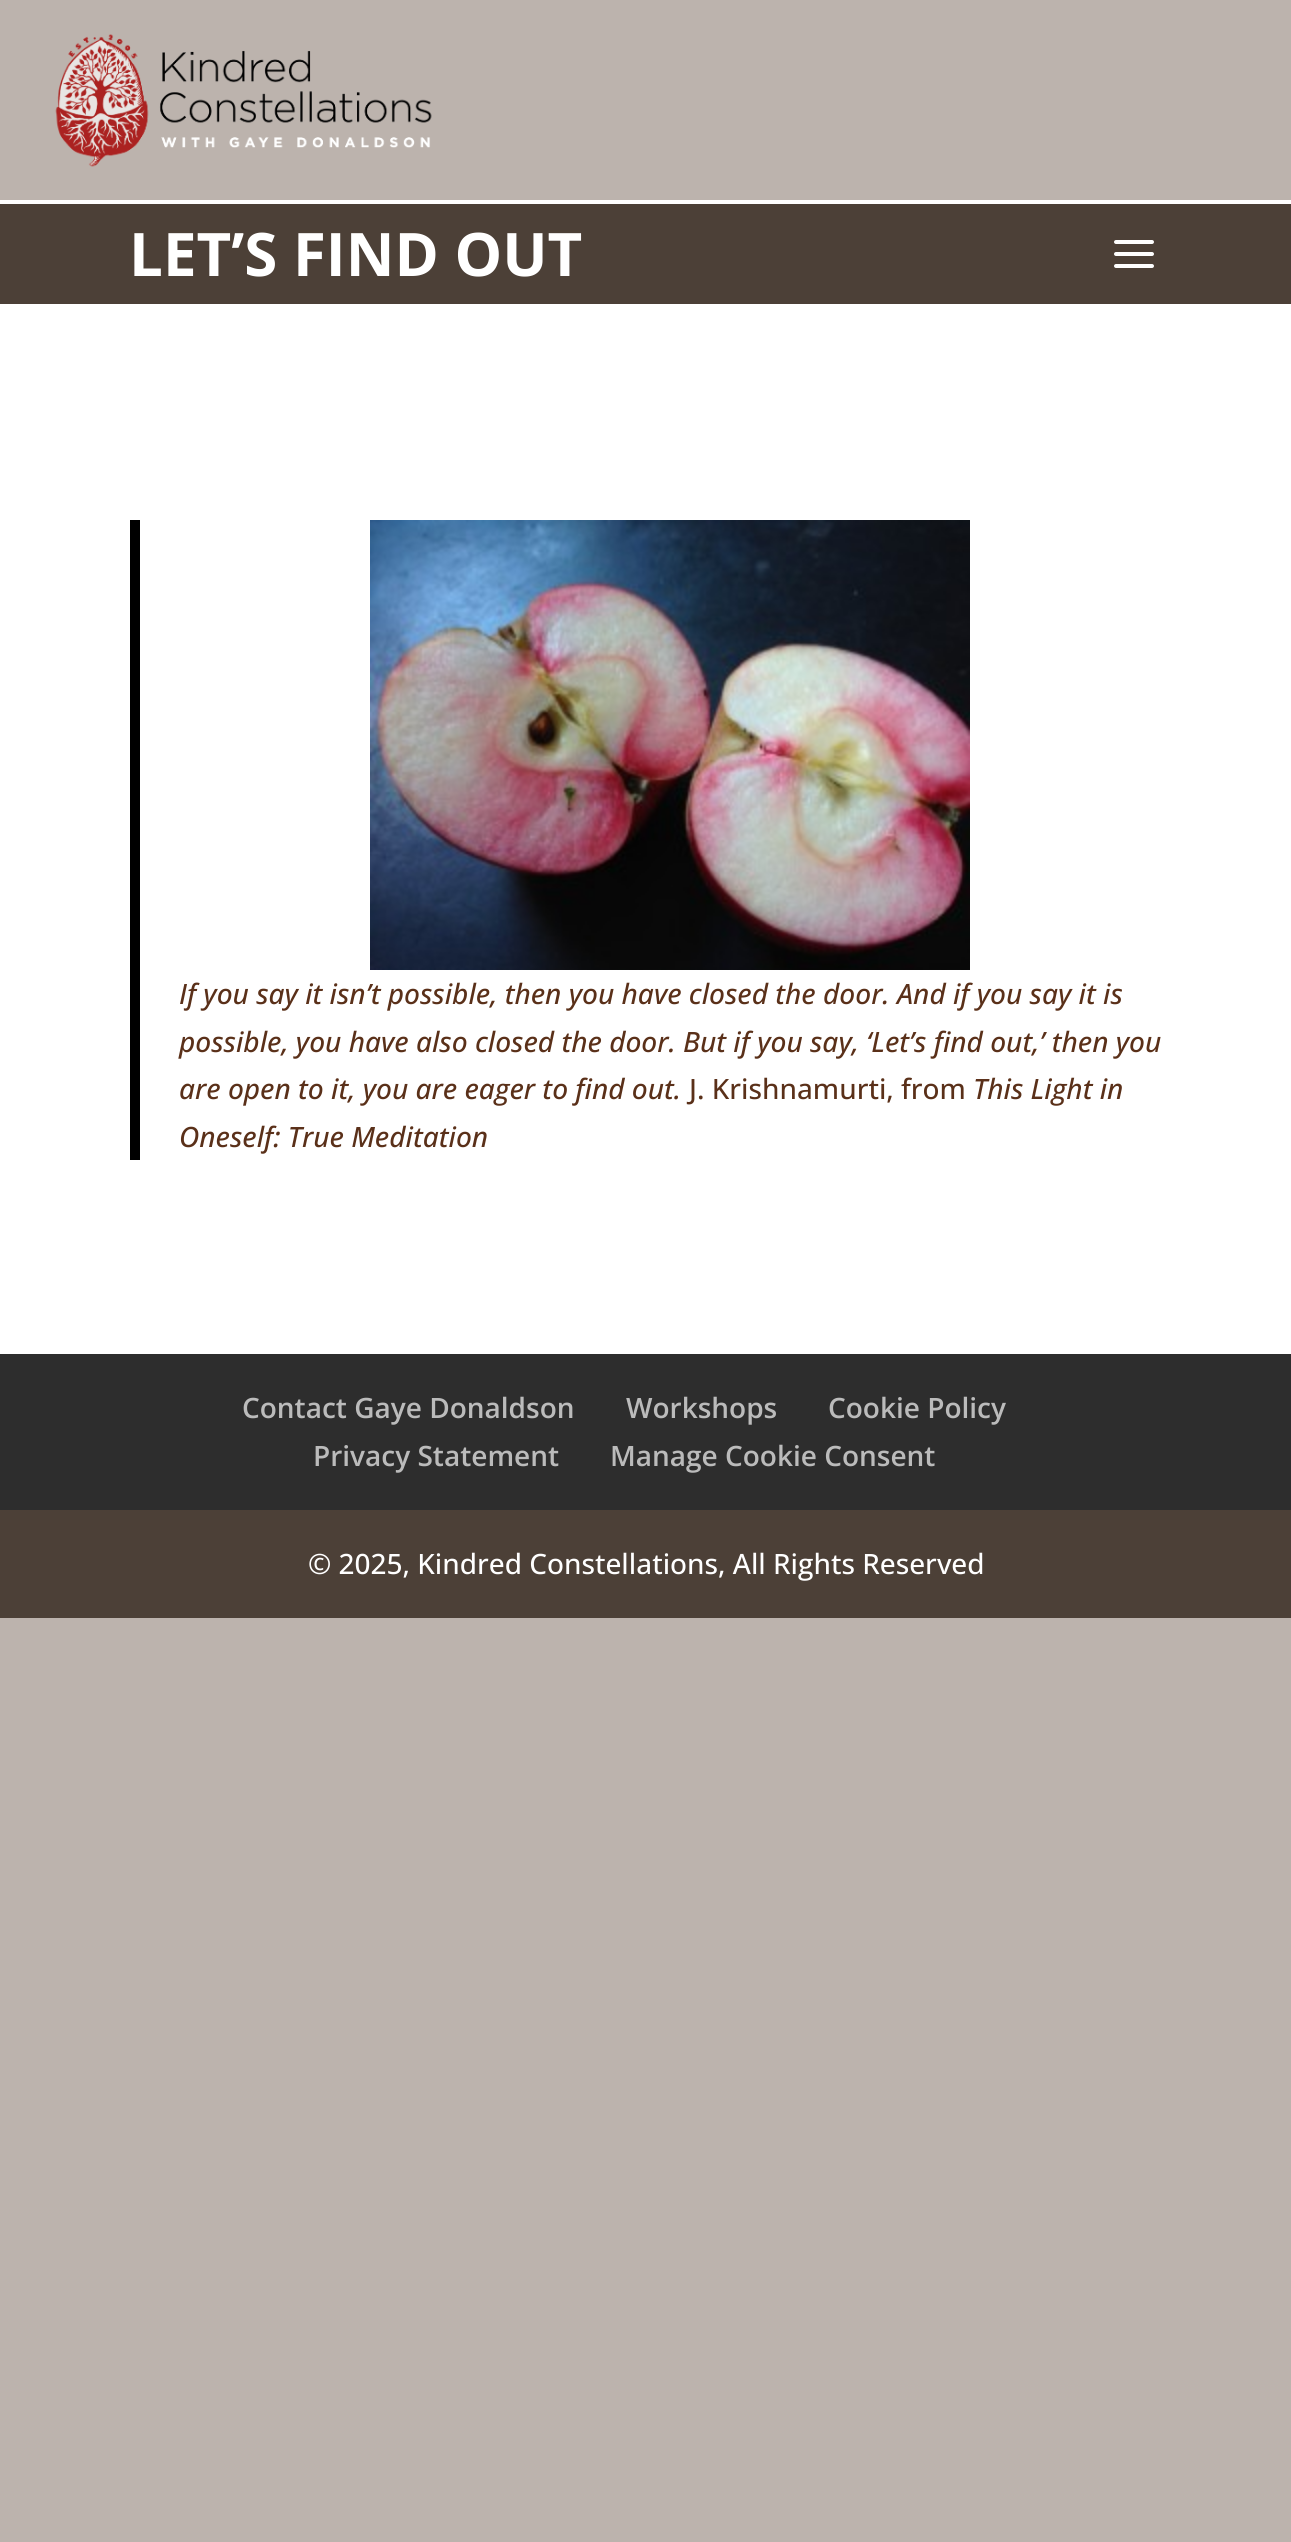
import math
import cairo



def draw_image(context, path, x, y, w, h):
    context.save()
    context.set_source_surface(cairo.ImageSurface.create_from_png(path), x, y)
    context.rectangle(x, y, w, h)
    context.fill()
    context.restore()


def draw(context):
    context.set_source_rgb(188 / 255, 179 / 255, 173 / 255)
    context.paint()
    context.set_source_rgb(1, 1, 1)
    context.rectangle(0, 200, 1291, 1154)
    context.fill()
    draw_image(context, "images/1.png", 55, 34, 377, 133)
    context.set_source_rgb(76 / 255, 64 / 255, 55 / 255)
    context.rectangle(0, 204, 1291, 100)
    context.fill()
    draw_image(context, "images/2.png", 1114, 240, 40, 28)
    context.set_source_rgb(0, 0, 0)
    context.rectangle(130, 520, 10, 640)
    context.fill()
    draw_image(context, "images/3.png", 370, 520, 600, 450)
    context.set_source_rgb(45 / 255, 45 / 255, 45 / 255)
    context.rectangle(0, 1354, 1291, 156)
    context.fill()
    context.set_source_rgb(76 / 255, 64 / 255, 55 / 255)
    context.rectangle(0, 1510, 1291, 108)
    context.fill()
    context.select_font_face("Open Sans", cairo.FontSlant.NORMAL, cairo.FontWeight.BOLD)
    context.set_font_size(60)
    context.set_source_rgb(1, 1, 1)
    context.move_to(129, 276)
    context.show_text("LET’S FIND OUT")
    context.select_font_face("Open Sans Medium", cairo.FontSlant.ITALIC)
    context.set_font_size(28)
    context.set_source_rgb(90 / 255, 48 / 255, 25 / 255)
    context.move_to(179, 1004)
    context.show_text("If you say it isn’t possible, then you have closed the door. And if you say it is")
    context.move_to(179, 1052)
    context.show_text("possible, you have also closed the door. But if you say, ‘Let’s find out,’ then you")
    context.move_to(179, 1099)
    context.show_text("are open to it, you are eager to find out.")
    context.select_font_face("Open Sans Medium")
    context.move_to(689, 1099)
    context.show_text("J. Krishnamurti, from")
    context.select_font_face("Open Sans Medium", cairo.FontSlant.ITALIC)
    context.move_to(973, 1099)
    context.show_text("This Light in")
    context.move_to(179, 1147)
    context.show_text("Oneself: True Meditation")
    context.select_font_face("Open Sans SemiBold")
    context.set_source_rgb(187 / 255, 187 / 255, 187 / 255)
    context.move_to(242, 1418)
    context.show_text("Contact Gaye Donaldson")
    context.move_to(626, 1418)
    context.show_text("Workshops")
    context.move_to(828, 1418)
    context.show_text("Cookie Policy")
    context.move_to(313, 1466)
    context.show_text("Privacy Statement")
    context.move_to(610, 1466)
    context.show_text("Manage Cookie Consent")
    context.select_font_face("Open Sans Medium")
    context.set_source_rgb(1, 1, 1)
    context.move_to(308, 1574)
    context.show_text("© 2025, Kindred Constellations, All Rights Reserved")


surface = cairo.ImageSurface(cairo.Format.RGB24, 1291, 2542)
context = cairo.Context(surface)
options = cairo.FontOptions()
options.set_hint_metrics(cairo.HintMetrics.OFF)
options.set_hint_style(cairo.HintStyle.NONE)
context.set_font_options(options)
context.set_miter_limit(4)
draw(context)
surface.write_to_png("out.png")
